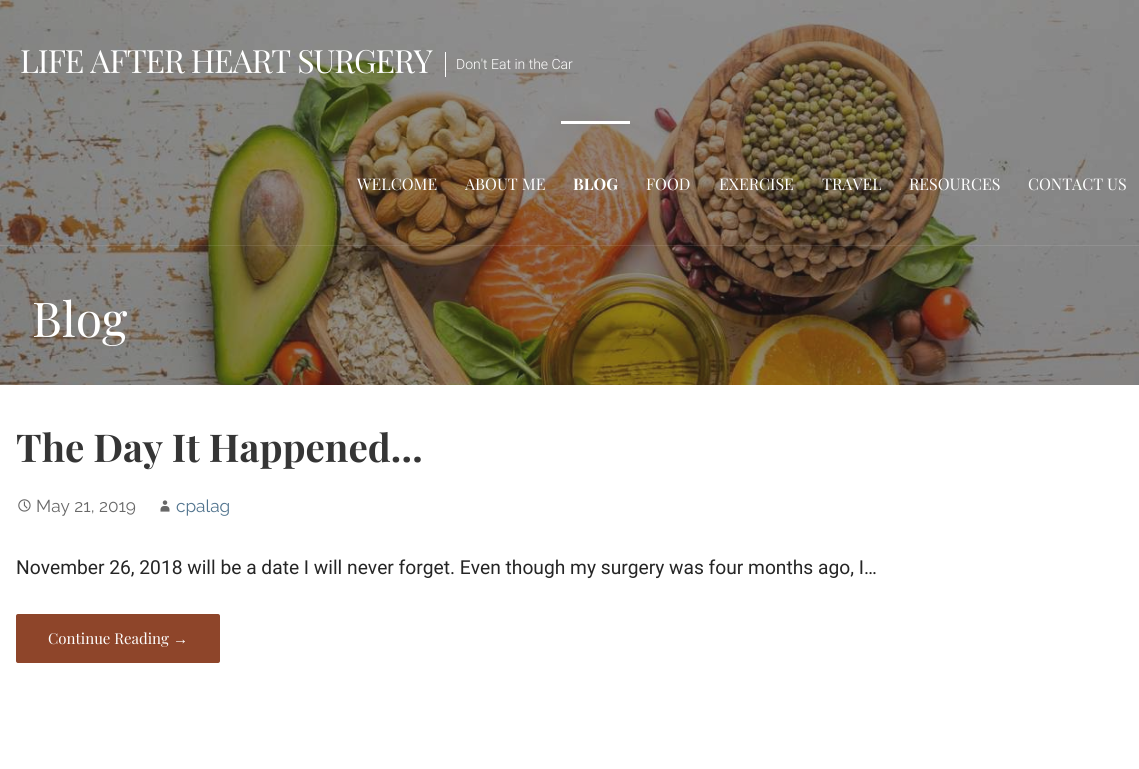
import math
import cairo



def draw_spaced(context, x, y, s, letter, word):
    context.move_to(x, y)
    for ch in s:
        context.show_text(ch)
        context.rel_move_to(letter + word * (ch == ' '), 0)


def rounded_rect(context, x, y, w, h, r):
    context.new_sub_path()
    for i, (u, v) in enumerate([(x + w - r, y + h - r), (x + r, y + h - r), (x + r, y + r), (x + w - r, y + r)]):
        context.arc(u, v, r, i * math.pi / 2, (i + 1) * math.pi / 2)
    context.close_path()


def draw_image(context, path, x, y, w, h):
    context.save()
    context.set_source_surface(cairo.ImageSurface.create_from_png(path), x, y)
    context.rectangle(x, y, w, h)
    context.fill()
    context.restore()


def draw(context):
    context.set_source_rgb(1, 1, 1)
    context.paint()
    draw_image(context, "images/1.png", 0, 0, 1139, 385)
    context.set_source_rgba(1, 1, 1, 0.1)
    context.rectangle(0, 245, 1139, 1)
    context.fill()
    context.set_source_rgb(1, 1, 1)
    context.rectangle(445, 52, 1, 25)
    context.fill()
    context.rectangle(561, 121, 69, 3)
    context.fill()
    draw_image(context, "images/2.png", 18, 499, 13, 13)
    draw_image(context, "images/3.png", 160, 500, 10, 12)
    context.set_source_rgb(142 / 255, 69 / 255, 42 / 255)
    rounded_rect(context, 16, 614, 204, 49, 2)
    context.fill()
    context.select_font_face("Playfair Display")
    context.set_font_size(32)
    context.set_source_rgb(1, 1, 1)
    draw_spaced(context, 20, 73, "LIFE AFTER HEART SURGERY", -1, 0)
    context.select_font_face("Roboto Light")
    context.set_font_size(14)
    context.move_to(456, 69)
    context.show_text("Don't Eat in the Car")
    context.select_font_face("Playfair Display")
    context.set_font_size(16)
    context.move_to(357, 190)
    context.show_text("WELCOME")
    context.move_to(465, 190)
    context.show_text("ABOUT ME")
    context.select_font_face("Playfair Display", cairo.FontSlant.NORMAL, cairo.FontWeight.BOLD)
    context.move_to(573, 190)
    context.show_text("BLOG")
    context.select_font_face("Playfair Display")
    context.move_to(646, 190)
    context.show_text("FOOD")
    context.move_to(719, 190)
    context.show_text("EXERCISE")
    context.move_to(822, 190)
    context.show_text("TRAVEL")
    context.move_to(909, 190)
    context.show_text("RESOURCES")
    context.move_to(1028, 190)
    context.show_text("CONTACT US")
    context.set_font_size(48)
    context.move_to(32, 337)
    context.show_text("Blog")
    context.select_font_face("Playfair Display", cairo.FontSlant.NORMAL, cairo.FontWeight.BOLD)
    context.set_font_size(38.4)
    context.set_source_rgb(53 / 255, 53 / 255, 53 / 255)
    context.move_to(16, 462)
    context.show_text("The Day It Happened…")
    context.select_font_face("Raleway")
    context.set_font_size(17.25)
    context.set_source_rgb(104 / 255, 104 / 255, 104 / 255)
    context.move_to(36, 512)
    context.show_text("May 21, 2019")
    context.set_source_rgb(81 / 255, 116 / 255, 142 / 255)
    context.move_to(176, 512)
    context.show_text("cpalag")
    context.select_font_face("Roboto")
    context.set_font_size(19.2)
    context.set_source_rgb(37 / 255, 37 / 255, 37 / 255)
    context.move_to(16, 574)
    context.show_text("November 26, 2018 will be a date I will never forget. Even though my surgery was four months ago, I…")
    context.select_font_face("Playfair Display")
    context.set_font_size(15)
    context.set_source_rgb(1, 1, 1)
    context.move_to(48, 644)
    context.show_text("Continue Reading")
    context.select_font_face("Liberation Sans")
    context.move_to(173, 644)
    context.show_text("→")


surface = cairo.ImageSurface(cairo.Format.RGB24, 1139, 769)
context = cairo.Context(surface)
options = cairo.FontOptions()
options.set_hint_metrics(cairo.HintMetrics.OFF)
options.set_hint_style(cairo.HintStyle.NONE)
context.set_font_options(options)
context.set_miter_limit(4)
draw(context)
surface.write_to_png("out.png")
